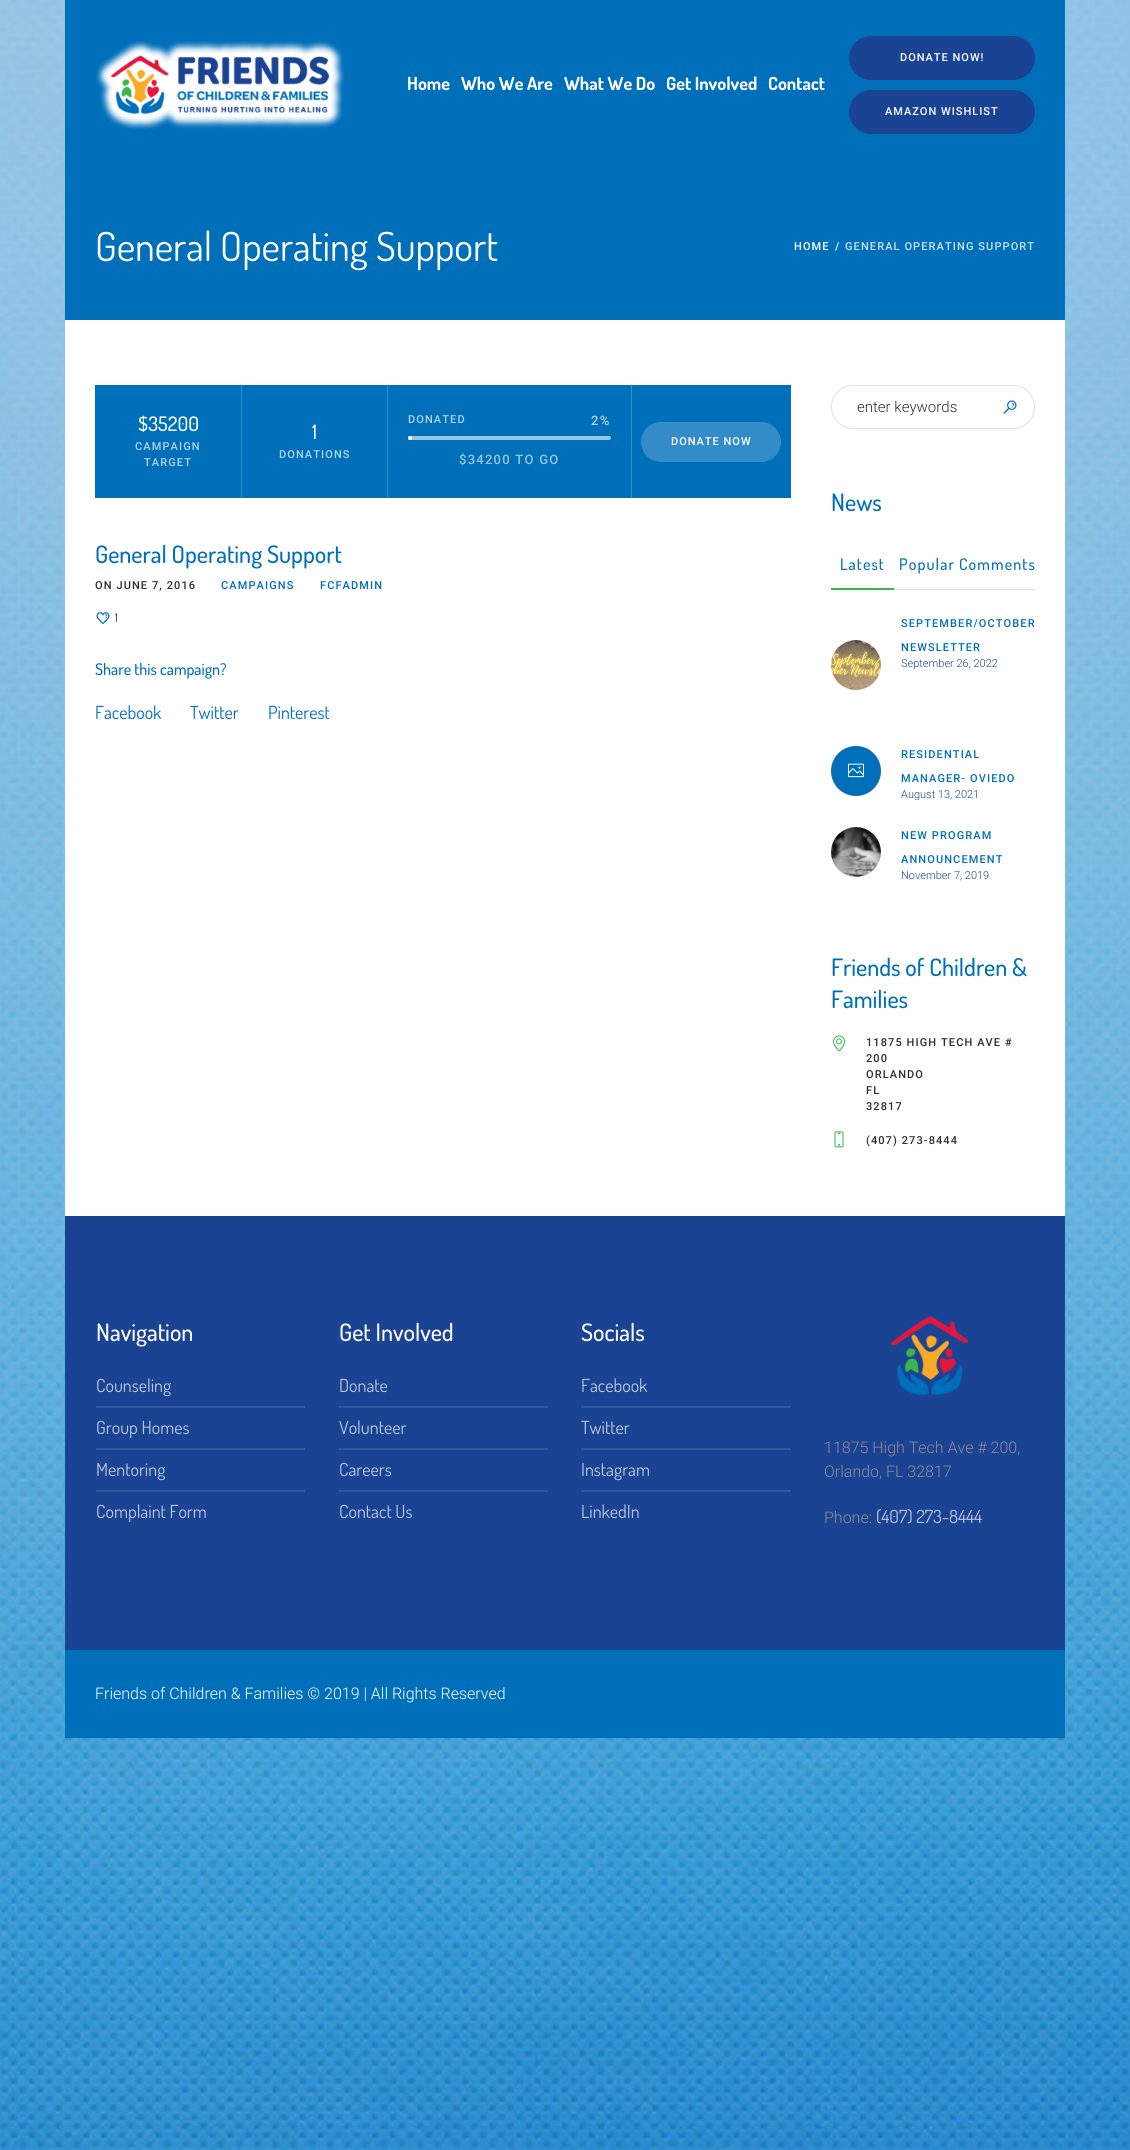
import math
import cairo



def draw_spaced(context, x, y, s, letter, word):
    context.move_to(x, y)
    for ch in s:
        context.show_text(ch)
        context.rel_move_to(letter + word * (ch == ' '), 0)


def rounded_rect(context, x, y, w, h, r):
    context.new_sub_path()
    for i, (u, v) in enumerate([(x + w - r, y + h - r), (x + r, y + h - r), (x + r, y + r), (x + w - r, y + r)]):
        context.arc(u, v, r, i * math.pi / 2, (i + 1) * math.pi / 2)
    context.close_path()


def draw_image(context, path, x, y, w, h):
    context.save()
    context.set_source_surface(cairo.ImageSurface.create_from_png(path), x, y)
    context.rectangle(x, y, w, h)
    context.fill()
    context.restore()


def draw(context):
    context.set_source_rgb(1, 1, 1)
    context.paint()
    draw_image(context, "images/1.png", 0, 0, 1130, 2150)
    context.set_source_rgb(0, 111 / 255, 186 / 255)
    context.rectangle(65, 0, 1000, 320)
    context.fill()
    draw_image(context, "images/2.png", 96, 41, 249, 89)
    context.set_source_rgb(27 / 255, 67 / 255, 147 / 255)
    rounded_rect(context, 850, 37, 184, 42, 21)
    context.fill_preserve()
    context.stroke()
    rounded_rect(context, 850, 91, 184, 42, 21)
    context.fill_preserve()
    context.stroke()
    context.set_source_rgb(1, 1, 1)
    context.rectangle(65, 320, 1000, 896)
    context.fill()
    context.set_source_rgb(0, 111 / 255, 186 / 255)
    context.rectangle(95, 385, 696, 113)
    context.fill()
    context.set_source_rgb(51 / 255, 140 / 255, 200 / 255)
    context.rectangle(241, 385, 1, 113)
    context.fill()
    context.rectangle(387, 385, 1, 113)
    context.fill()
    context.set_source_rgb(1, 1, 1)
    context.arc(410, 438, 2, 0, 2 * math.pi)
    context.fill()
    context.set_source_rgba(1, 1, 1, 0.6)
    rounded_rect(context, 408, 436, 203, 4, 2)
    context.fill()
    context.set_source_rgb(51 / 255, 140 / 255, 200 / 255)
    context.rectangle(631, 385, 1, 113)
    context.fill()
    rounded_rect(context, 641, 422, 140, 40, 20)
    context.fill()
    draw_image(context, "images/3.png", 96, 612, 14, 12)
    rounded_rect(context, 831.5, 385.5, 203, 43, 21.5)
    context.set_source_rgb(223 / 255, 223 / 255, 223 / 255)
    context.set_line_width(1)
    context.stroke()
    draw_image(context, "images/4.png", 1003, 400, 14, 14)
    context.set_source_rgb(57 / 255, 181 / 255, 74 / 255)
    context.rectangle(831, 588, 63, 2)
    context.fill()
    context.set_source_rgb(223 / 255, 223 / 255, 223 / 255)
    context.rectangle(894, 589, 141, 1)
    context.fill()
    draw_image(context, "images/5.png", 831, 640, 50, 50)
    context.set_source_rgb(0, 111 / 255, 186 / 255)
    context.arc(856, 771, 25, 0, 2 * math.pi)
    context.fill()
    draw_image(context, "images/6.png", 848, 763, 16, 15)
    draw_image(context, "images/7.png", 831, 827, 50, 50)
    draw_image(context, "images/8.png", 833, 1035, 12, 17)
    draw_image(context, "images/9.png", 834, 1131, 10, 17)
    context.set_source_rgb(27 / 255, 67 / 255, 147 / 255)
    context.rectangle(65, 1216, 1000, 434)
    context.fill()
    context.set_source_rgb(50 / 255, 86 / 255, 158 / 255)
    context.rectangle(96, 1406, 209, 2)
    context.fill()
    context.rectangle(96, 1448, 209, 2)
    context.fill()
    context.rectangle(96, 1490, 209, 2)
    context.fill()
    context.rectangle(339, 1406, 209, 2)
    context.fill()
    context.rectangle(339, 1448, 209, 2)
    context.fill()
    context.rectangle(339, 1490, 209, 2)
    context.fill()
    context.rectangle(581, 1406, 210, 2)
    context.fill()
    context.rectangle(581, 1448, 210, 2)
    context.fill()
    context.rectangle(581, 1490, 210, 2)
    context.fill()
    draw_image(context, "images/10.png", 890, 1316, 79, 80)
    context.set_source_rgb(0, 111 / 255, 186 / 255)
    context.rectangle(65, 1650, 1000, 88)
    context.fill()
    context.select_font_face("Dosis", cairo.FontSlant.NORMAL, cairo.FontWeight.BOLD)
    context.set_font_size(18)
    context.set_source_rgb(1, 1, 1)
    context.move_to(407, 90)
    context.show_text("Home")
    context.move_to(461, 90)
    context.show_text("Who We Are")
    context.move_to(564, 90)
    context.show_text("What We Do")
    context.move_to(666, 90)
    context.show_text("Get Involved")
    context.move_to(768, 90)
    context.show_text("Contact")
    context.select_font_face("Roboto Medium")
    context.set_font_size(11)
    draw_spaced(context, 900, 61, "DONATE NOW!", 1, 0)
    draw_spaced(context, 885, 115, "AMAZON WISHLIST", 1, 0)
    context.select_font_face("Dosis")
    context.set_font_size(40)
    context.move_to(95, 261)
    context.show_text("General Operating Support")
    context.select_font_face("Roboto Medium")
    context.set_font_size(11)
    draw_spaced(context, 794, 250, "HOME", 1.1, 0)
    draw_spaced(context, 835, 250, "/", 1.1, 0)
    context.set_source_rgb(204 / 255, 226 / 255, 241 / 255)
    draw_spaced(context, 845, 250, "GENERAL OPERATING SUPPORT", 1.1, 0)
    context.select_font_face("Dosis Medium")
    context.set_font_size(20)
    context.set_source_rgb(1, 1, 1)
    context.move_to(138, 431)
    context.show_text("$35200")
    context.select_font_face("Roboto Medium")
    context.set_font_size(11)
    context.set_source_rgb(179 / 255, 212 / 255, 234 / 255)
    draw_spaced(context, 135, 450, "CAMPAIGN", 1.1, 0)
    draw_spaced(context, 144, 466, "TARGET", 1.1, 0)
    context.select_font_face("Dosis Medium")
    context.set_font_size(20)
    context.set_source_rgb(1, 1, 1)
    context.move_to(312, 439)
    context.show_text("1")
    context.select_font_face("Roboto Medium")
    context.set_font_size(11)
    context.set_source_rgb(179 / 255, 212 / 255, 234 / 255)
    draw_spaced(context, 279, 458, "DONATIONS", 1.1, 0)
    draw_spaced(context, 408, 423, "DONATED", 1.1, 0)
    context.set_font_size(13)
    draw_spaced(context, 591, 425, "2%", 1.25, 0)
    context.set_source_rgb(153 / 255, 197 / 255, 227 / 255)
    draw_spaced(context, 459, 464, "$34200 TO GO", 1.25, 0)
    context.set_font_size(11)
    context.set_source_rgb(1, 1, 1)
    draw_spaced(context, 671, 445, "DONATE NOW", 1, 0)
    context.select_font_face("Dosis Medium")
    context.set_font_size(24)
    context.set_source_rgb(0, 111 / 255, 186 / 255)
    context.move_to(95, 563)
    context.show_text("General Operating Support")
    context.select_font_face("Roboto Medium")
    context.set_font_size(11)
    context.set_source_rgb(46 / 255, 43 / 255, 51 / 255)
    draw_spaced(context, 95, 589, "ON JUNE 7, 2016", 1.1, 0)
    context.set_source_rgb(0, 111 / 255, 186 / 255)
    draw_spaced(context, 221, 589, "CAMPAIGNS", 1.1, 0)
    draw_spaced(context, 320, 589, "FCFADMIN", 1.1, 0)
    context.select_font_face("Dosis")
    context.set_font_size(12)
    context.set_source_rgb(46 / 255, 43 / 255, 51 / 255)
    draw_spaced(context, 115, 622, "1", 2, 0)
    context.select_font_face("Dosis Medium")
    context.set_font_size(16)
    context.set_source_rgb(0, 111 / 255, 186 / 255)
    context.move_to(95, 675)
    context.show_text("Share this campaign?")
    context.select_font_face("Dosis")
    context.set_font_size(18)
    context.move_to(95, 719)
    context.show_text("Facebook")
    context.move_to(190, 719)
    context.show_text("Twitter")
    context.move_to(268, 719)
    context.show_text("Pinterest")
    context.select_font_face("Roboto Light")
    context.set_font_size(15)
    context.set_source_rgb(46 / 255, 43 / 255, 51 / 255)
    context.move_to(857, 412)
    context.show_text("enter keywords")
    context.select_font_face("Dosis Medium")
    context.set_font_size(24)
    context.set_source_rgb(0, 111 / 255, 186 / 255)
    context.move_to(831, 511)
    context.show_text("News")
    context.set_font_size(16)
    draw_spaced(context, 840, 570, "Latest", 1.1, 0)
    draw_spaced(context, 899, 570, "Popular", 1.1, 0)
    draw_spaced(context, 959, 570, "Comments", 1.1, 0)
    context.select_font_face("Roboto Medium")
    context.set_font_size(11)
    draw_spaced(context, 901, 627, "SEPTEMBER/OCTOBER", 1.1, 0)
    draw_spaced(context, 901, 651, "NEWSLETTER", 1.1, 0)
    context.select_font_face("Roboto Light")
    context.set_source_rgb(27 / 255, 67 / 255, 147 / 255)
    context.move_to(901, 667)
    context.show_text("September 26, 2022")
    context.select_font_face("Roboto Medium")
    context.set_source_rgb(0, 111 / 255, 186 / 255)
    draw_spaced(context, 901, 758, "RESIDENTIAL", 1.1, 0)
    draw_spaced(context, 901, 782, "MANAGER- OVIEDO", 1.1, 0)
    context.save()
    context.rectangle(831, 741, 204, 59)
    context.clip()
    context.select_font_face("Roboto Light")
    context.set_source_rgb(27 / 255, 67 / 255, 147 / 255)
    context.move_to(901, 798)
    context.show_text("August 13, 2021")
    context.restore()
    draw_spaced(context, 901, 839, "NEW PROGRAM", 1.1, 0)
    draw_spaced(context, 901, 863, "ANNOUNCEMENT", 1.1, 0)
    context.select_font_face("Roboto Light")
    context.set_source_rgb(27 / 255, 67 / 255, 147 / 255)
    context.move_to(901, 879)
    context.show_text("November 7, 2019")
    context.select_font_face("Dosis Medium")
    context.set_font_size(24)
    context.set_source_rgb(0, 111 / 255, 186 / 255)
    context.move_to(831, 976)
    context.show_text("Friends of Children &")
    context.move_to(831, 1008)
    context.show_text("Families")
    context.select_font_face("Roboto Medium")
    context.set_font_size(11)
    context.set_source_rgb(46 / 255, 43 / 255, 51 / 255)
    draw_spaced(context, 866, 1046, "11875 HIGH TECH AVE #", 1.1, 0)
    draw_spaced(context, 866, 1062, "200", 1.1, 0)
    draw_spaced(context, 866, 1078, "ORLANDO", 1.1, 0)
    draw_spaced(context, 866, 1094, "FL", 1.1, 0)
    draw_spaced(context, 866, 1110, "32817", 1.1, 0)
    draw_spaced(context, 866, 1144, "(407) 273-8444", 1.1, 0)
    context.select_font_face("Dosis Medium")
    context.set_font_size(24)
    context.set_source_rgb(1, 1, 1)
    context.move_to(96, 1341)
    context.show_text("Navigation")
    context.select_font_face("Dosis")
    context.set_font_size(18)
    context.set_source_rgb(187 / 255, 199 / 255, 223 / 255)
    context.move_to(96, 1392)
    context.show_text("Counseling")
    context.move_to(96, 1434)
    context.show_text("Group Homes")
    context.move_to(96, 1476)
    context.show_text("Mentoring")
    context.move_to(96, 1518)
    context.show_text("Complaint Form")
    context.select_font_face("Dosis Medium")
    context.set_font_size(24)
    context.set_source_rgb(1, 1, 1)
    context.move_to(339, 1341)
    context.show_text("Get Involved")
    context.select_font_face("Dosis")
    context.set_font_size(18)
    context.set_source_rgb(187 / 255, 199 / 255, 223 / 255)
    context.move_to(339, 1392)
    context.show_text("Donate")
    context.move_to(339, 1434)
    context.show_text("Volunteer")
    context.move_to(339, 1476)
    context.show_text("Careers")
    context.move_to(339, 1518)
    context.show_text("Contact Us")
    context.select_font_face("Dosis Medium")
    context.set_font_size(24)
    context.set_source_rgb(1, 1, 1)
    context.move_to(581, 1341)
    context.show_text("Socials")
    context.select_font_face("Dosis")
    context.set_font_size(18)
    context.set_source_rgb(187 / 255, 199 / 255, 223 / 255)
    context.move_to(581, 1392)
    context.show_text("Facebook")
    context.move_to(581, 1434)
    context.show_text("Twitter")
    context.move_to(581, 1476)
    context.show_text("Instagram")
    context.move_to(581, 1518)
    context.show_text("LinkedIn")
    context.select_font_face("Roboto Light")
    context.set_font_size(16)
    context.set_source_rgb(144 / 255, 140 / 255, 146 / 255)
    context.move_to(824, 1453)
    context.show_text("11875 High Tech Ave # 200,")
    context.move_to(824, 1477)
    context.show_text("Orlando, FL 32817")
    context.move_to(824, 1523)
    context.show_text("Phone:")
    context.select_font_face("Dosis")
    context.set_font_size(18)
    context.set_source_rgb(187 / 255, 199 / 255, 223 / 255)
    context.move_to(876, 1523)
    context.show_text("(407) 273-8444")
    context.select_font_face("Roboto Light")
    context.set_font_size(16)
    context.set_source_rgb(1, 1, 1)
    context.move_to(95, 1699)
    context.show_text("Friends of Children & Families © 2019 | All Rights Reserved")


surface = cairo.ImageSurface(cairo.Format.RGB24, 1130, 2150)
context = cairo.Context(surface)
options = cairo.FontOptions()
options.set_hint_metrics(cairo.HintMetrics.OFF)
options.set_hint_style(cairo.HintStyle.NONE)
context.set_font_options(options)
context.set_miter_limit(4)
draw(context)
surface.write_to_png("out.png")
